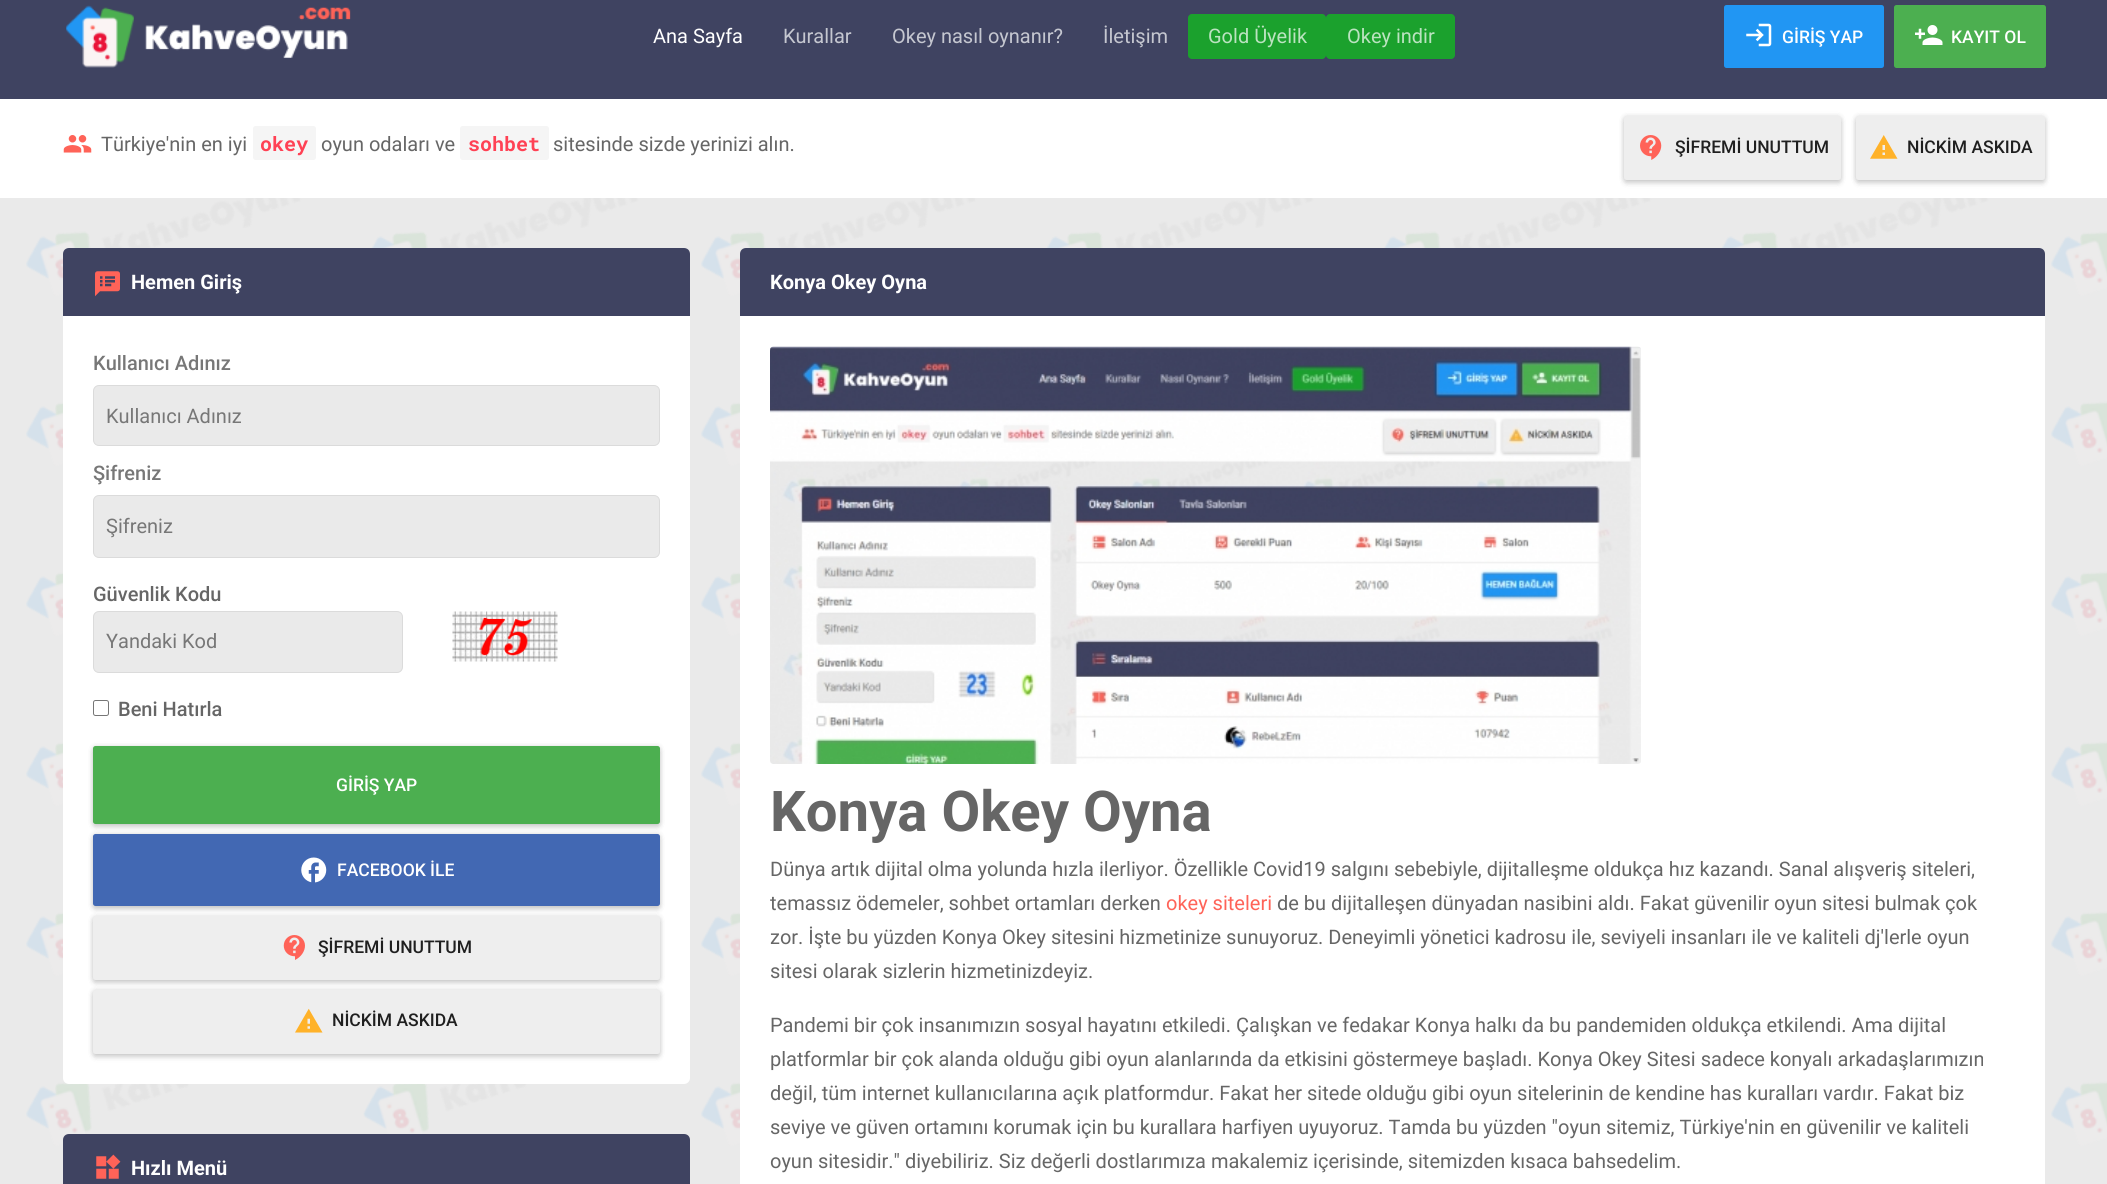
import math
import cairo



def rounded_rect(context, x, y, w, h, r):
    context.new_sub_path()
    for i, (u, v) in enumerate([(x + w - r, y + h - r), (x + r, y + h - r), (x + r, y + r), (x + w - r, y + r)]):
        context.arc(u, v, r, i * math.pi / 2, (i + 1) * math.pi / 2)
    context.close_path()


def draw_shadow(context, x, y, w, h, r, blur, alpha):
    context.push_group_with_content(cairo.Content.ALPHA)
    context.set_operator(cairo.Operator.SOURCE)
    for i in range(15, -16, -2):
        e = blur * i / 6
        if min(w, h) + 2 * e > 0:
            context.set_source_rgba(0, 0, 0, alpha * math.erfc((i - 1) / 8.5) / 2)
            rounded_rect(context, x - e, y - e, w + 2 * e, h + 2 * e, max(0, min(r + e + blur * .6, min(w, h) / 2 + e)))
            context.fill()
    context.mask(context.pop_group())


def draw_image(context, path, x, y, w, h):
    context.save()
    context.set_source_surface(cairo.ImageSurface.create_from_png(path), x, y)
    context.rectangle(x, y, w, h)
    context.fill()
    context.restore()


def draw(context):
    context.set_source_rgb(234 / 255, 234 / 255, 234 / 255)
    context.paint()
    draw_image(context, "images/1.png", 26, 198, 2081, 948)
    context.set_source_rgb(63 / 255, 67 / 255, 97 / 255)
    context.rectangle(0, 0, 2107, 99)
    context.fill()
    draw_image(context, "images/2.png", 66, 5, 285, 63)
    context.set_source_rgb(27 / 255, 161 / 255, 45 / 255)
    rounded_rect(context, 1188, 14, 138, 45, 4)
    context.fill()
    rounded_rect(context, 1326, 14, 129, 45, 4)
    context.fill()
    context.set_source_rgb(33 / 255, 150 / 255, 243 / 255)
    rounded_rect(context, 1724, 5, 160, 63, 2.5)
    context.fill()
    draw_image(context, "images/3.png", 1746, 23, 26, 24)
    context.set_source_rgb(76 / 255, 175 / 255, 80 / 255)
    rounded_rect(context, 1894, 5, 152, 63, 2.5)
    context.fill()
    draw_image(context, "images/4.png", 1915, 25, 28, 20)
    context.set_source_rgb(1, 1, 1)
    context.rectangle(0, 99, 2107, 99)
    context.fill()
    draw_image(context, "images/5.png", 63, 135, 29, 18)
    context.set_source_rgb(245 / 255, 245 / 255, 245 / 255)
    rounded_rect(context, 253, 126, 63, 34, 2.5)
    context.fill()
    rounded_rect(context, 460, 126, 89, 34, 2.5)
    context.fill()
    context.set_source_rgb(0, 0, 0)
    draw_shadow(context, 1624, 118, 217, 63, 2.5, 3, 0.1)
    draw_shadow(context, 1624, 120, 217, 64, 2.5, 2.5, 0.1)
    draw_shadow(context, 1624, 116, 217, 64, 2.5, 2.5, 0.1)
    context.set_source_rgb(238 / 255, 238 / 255, 238 / 255)
    rounded_rect(context, 1624, 116, 217, 64, 2.5)
    context.fill()
    draw_image(context, "images/6.png", 1640, 135, 22, 25)
    context.set_source_rgb(0, 0, 0)
    draw_shadow(context, 1856, 118, 189, 63, 2.5, 3, 0.1)
    draw_shadow(context, 1856, 120, 189, 64, 2.5, 2.5, 0.1)
    draw_shadow(context, 1856, 116, 189, 64, 2.5, 2.5, 0.1)
    context.set_source_rgb(238 / 255, 238 / 255, 238 / 255)
    rounded_rect(context, 1856, 116, 189, 64, 2.5)
    context.fill()
    draw_image(context, "images/7.png", 1870, 135, 28, 24)
    context.set_source_rgb(1, 1, 1)
    rounded_rect(context, 63, 248, 627, 836, 6)
    context.fill()
    context.set_source_rgb(63 / 255, 67 / 255, 97 / 255)
    context.new_path()
    context.move_to(69, 248)
    context.line_to(684, 248)
    context.curve_to(687.5, 248, 690, 250.5, 690, 254)
    context.line_to(690, 316)
    context.line_to(63, 316)
    context.line_to(63, 254)
    context.curve_to(63, 250.5, 65.5, 248, 69, 248)
    context.close_path()
    context.fill()
    draw_image(context, "images/8.png", 95, 271, 25, 26)
    context.set_source_rgb(234 / 255, 234 / 255, 234 / 255)
    rounded_rect(context, 93.5, 385.5, 566, 60, 5.5)
    context.fill_preserve()
    context.set_source_rgb(219 / 255, 219 / 255, 219 / 255)
    context.set_line_width(1)
    context.stroke()
    context.set_source_rgb(234 / 255, 234 / 255, 234 / 255)
    rounded_rect(context, 93.5, 495.5, 566, 62, 5.5)
    context.fill_preserve()
    context.set_source_rgb(219 / 255, 219 / 255, 219 / 255)
    context.stroke()
    context.set_source_rgb(234 / 255, 234 / 255, 234 / 255)
    rounded_rect(context, 93.5, 611.5, 309, 61, 5.5)
    context.fill_preserve()
    context.set_source_rgb(219 / 255, 219 / 255, 219 / 255)
    context.stroke()
    draw_image(context, "images/9.png", 452, 611, 106, 51)
    rounded_rect(context, 93.5, 700.5, 15, 15, 2)
    context.set_source_rgb(118 / 255, 118 / 255, 118 / 255)
    context.stroke()
    context.set_source_rgb(0, 0, 0)
    draw_shadow(context, 93, 748, 567, 77, 2.5, 3, 0.1)
    draw_shadow(context, 93, 750, 567, 78, 2.5, 2.5, 0.1)
    draw_shadow(context, 93, 746, 567, 78, 2.5, 2.5, 0.1)
    context.set_source_rgb(76 / 255, 175 / 255, 80 / 255)
    rounded_rect(context, 93, 746, 567, 78, 2.5)
    context.fill()
    context.set_source_rgb(0, 0, 0)
    draw_shadow(context, 93, 835, 567, 73, 2.5, 3, 0.1)
    draw_shadow(context, 93, 838, 567, 72, 2.5, 2.5, 0.1)
    draw_shadow(context, 93, 834, 567, 72, 2.5, 2.5, 0.1)
    context.set_source_rgb(66 / 255, 104 / 255, 179 / 255)
    rounded_rect(context, 93, 834, 567, 72, 2.5)
    context.fill()
    draw_image(context, "images/10.png", 301, 857, 26, 26)
    context.set_source_rgb(0, 0, 0)
    draw_shadow(context, 93, 918, 567, 63, 2.5, 3, 0.1)
    draw_shadow(context, 93, 920, 567, 64, 2.5, 2.5, 0.1)
    draw_shadow(context, 93, 916, 567, 64, 2.5, 2.5, 0.1)
    context.set_source_rgb(238 / 255, 238 / 255, 238 / 255)
    rounded_rect(context, 93, 916, 567, 64, 2.5)
    context.fill()
    draw_image(context, "images/11.png", 283, 935, 22, 25)
    context.set_source_rgb(0, 0, 0)
    draw_shadow(context, 93, 991, 567, 64, 2.5, 3, 0.1)
    draw_shadow(context, 93, 994, 567, 64, 2.5, 2.5, 0.1)
    draw_shadow(context, 93, 990, 567, 64, 2.5, 2.5, 0.1)
    context.set_source_rgb(238 / 255, 238 / 255, 238 / 255)
    rounded_rect(context, 93, 990, 567, 64, 2.5)
    context.fill()
    draw_image(context, "images/12.png", 295, 1008, 28, 25)
    context.set_source_rgb(63 / 255, 67 / 255, 97 / 255)
    context.new_path()
    context.move_to(69, 1134)
    context.line_to(684, 1134)
    context.curve_to(687.5, 1134, 690, 1136.5, 690, 1140)
    context.line_to(690, 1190)
    context.line_to(63, 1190)
    context.line_to(63, 1140)
    context.curve_to(63, 1136.5, 65.5, 1134, 69, 1134)
    context.close_path()
    context.fill()
    draw_image(context, "images/13.png", 96, 1154, 25, 25)
    context.set_source_rgb(1, 1, 1)
    rounded_rect(context, 740, 248, 1305, 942, 6)
    context.fill()
    context.set_source_rgb(63 / 255, 67 / 255, 97 / 255)
    context.new_path()
    context.move_to(746, 248)
    context.line_to(2039, 248)
    context.curve_to(2042.5, 248, 2045, 250.5, 2045, 254)
    context.line_to(2045, 316)
    context.line_to(740, 316)
    context.line_to(740, 254)
    context.curve_to(740, 250.5, 742.5, 248, 746, 248)
    context.close_path()
    context.fill()
    draw_image(context, "images/14.png", 770, 346, 871, 418)
    context.select_font_face("Roboto")
    context.set_font_size(20)
    context.set_source_rgb(1, 1, 1)
    context.move_to(653, 43)
    context.show_text("Ana Sayfa")
    context.set_source_rgb(197 / 255, 199 / 255, 208 / 255)
    context.move_to(783, 43)
    context.show_text("Kurallar")
    context.move_to(892, 43)
    context.show_text("Okey nasıl oynanır?")
    context.move_to(1103, 43)
    context.show_text("İletişim")
    context.set_source_rgb(187 / 255, 227 / 255, 192 / 255)
    context.move_to(1208, 43)
    context.show_text("Gold Üyelik")
    context.move_to(1347, 43)
    context.show_text("Okey indir")
    context.select_font_face("Roboto Medium")
    context.set_font_size(17.5)
    context.set_source_rgb(1, 1, 1)
    context.move_to(1782, 43)
    context.show_text("GİRİŞ YAP")
    context.move_to(1951, 43)
    context.show_text("KAYIT OL")
    context.select_font_face("Roboto")
    context.set_font_size(20)
    context.set_source_rgb(102 / 255, 102 / 255, 102 / 255)
    context.move_to(101, 151)
    context.show_text("Türkiye'nin en iyi")
    context.select_font_face("Roboto Mono", cairo.FontSlant.NORMAL, cairo.FontWeight.BOLD)
    context.set_source_rgb(1, 65 / 255, 84 / 255)
    context.move_to(260, 151)
    context.show_text("okey")
    context.select_font_face("Roboto")
    context.set_source_rgb(102 / 255, 102 / 255, 102 / 255)
    context.move_to(321, 151)
    context.show_text("oyun odaları ve")
    context.select_font_face("Roboto Mono", cairo.FontSlant.NORMAL, cairo.FontWeight.BOLD)
    context.set_source_rgb(1, 65 / 255, 84 / 255)
    context.move_to(468, 151)
    context.show_text("sohbet")
    context.select_font_face("Roboto")
    context.set_source_rgb(102 / 255, 102 / 255, 102 / 255)
    context.move_to(553, 151)
    context.show_text("sitesinde sizde yerinizi alın.")
    context.select_font_face("Roboto Medium")
    context.set_font_size(17.5)
    context.set_source_rgb(31 / 255, 31 / 255, 31 / 255)
    context.move_to(1675, 153)
    context.show_text("ŞİFREMİ UNUTTUM")
    context.move_to(1907, 153)
    context.show_text("NİCKİM ASKIDA")
    context.select_font_face("Roboto", cairo.FontSlant.NORMAL, cairo.FontWeight.BOLD)
    context.set_font_size(20)
    context.set_source_rgb(1, 1, 1)
    context.move_to(131, 289)
    context.show_text("Hemen Giriş")
    context.select_font_face("Roboto Medium")
    context.set_source_rgb(119 / 255, 119 / 255, 119 / 255)
    context.move_to(93, 370)
    context.show_text("Kullanıcı Adınız")
    context.select_font_face("Roboto")
    context.move_to(106, 423)
    context.show_text("Kullanıcı Adınız")
    context.select_font_face("Roboto Medium")
    context.move_to(93, 480)
    context.show_text("Şifreniz")
    context.select_font_face("Roboto")
    context.move_to(106, 533)
    context.show_text("Şifreniz")
    context.select_font_face("Roboto Medium")
    context.set_source_rgb(102 / 255, 102 / 255, 102 / 255)
    context.move_to(93, 601)
    context.show_text("Güvenlik Kodu")
    context.select_font_face("Roboto")
    context.set_source_rgb(119 / 255, 119 / 255, 119 / 255)
    context.move_to(106, 648)
    context.show_text("Yandaki Kod")
    context.select_font_face("Roboto Medium")
    context.set_source_rgb(102 / 255, 102 / 255, 102 / 255)
    context.move_to(118, 716)
    context.show_text("Beni Hatırla")
    context.set_font_size(17.5)
    context.set_source_rgb(1, 1, 1)
    context.move_to(336, 791)
    context.show_text("GİRİŞ YAP")
    context.move_to(337, 876)
    context.show_text("FACEBOOK İLE")
    context.set_source_rgb(31 / 255, 31 / 255, 31 / 255)
    context.move_to(318, 953)
    context.show_text("ŞİFREMİ UNUTTUM")
    context.move_to(332, 1026)
    context.show_text("NİCKİM ASKIDA")
    context.select_font_face("Roboto", cairo.FontSlant.NORMAL, cairo.FontWeight.BOLD)
    context.set_font_size(20)
    context.set_source_rgb(1, 1, 1)
    context.move_to(131, 1175)
    context.show_text("Hızlı Menü")
    context.move_to(770, 289)
    context.show_text("Konya Okey Oyna")
    context.set_font_size(56.25)
    context.set_source_rgb(102 / 255, 102 / 255, 102 / 255)
    context.move_to(770, 831)
    context.show_text("Konya Okey Oyna")
    context.select_font_face("Roboto")
    context.set_font_size(20)
    context.move_to(770, 876)
    context.show_text("Dünya artık dijital olma yolunda hızla ilerliyor. Özellikle Covid19 salgını sebebiyle, dijitalleşme oldukça hız kazandı. Sanal alışveriş siteleri,")
    context.move_to(770, 910)
    context.show_text("temassız ödemeler, sohbet ortamları derken")
    context.set_source_rgb(1, 99 / 255, 88 / 255)
    context.move_to(1166, 910)
    context.show_text("okey siteleri")
    context.set_source_rgb(102 / 255, 102 / 255, 102 / 255)
    context.move_to(1277, 910)
    context.show_text("de bu dijitalleşen dünyadan nasibini aldı. Fakat güvenilir oyun sitesi bulmak çok")
    context.move_to(770, 944)
    context.show_text("zor. İşte bu yüzden Konya Okey sitesini hizmetinize sunuyoruz. Deneyimli yönetici kadrosu ile, seviyeli insanları ile ve kaliteli dj'lerle oyun")
    context.move_to(770, 978)
    context.show_text("sitesi olarak sizlerin hizmetinizdeyiz.")
    context.move_to(770, 1032)
    context.show_text("Pandemi bir çok insanımızın sosyal hayatını etkiledi. Çalışkan ve fedakar Konya halkı da bu pandemiden oldukça etkilendi. Ama dijital")
    context.move_to(770, 1066)
    context.show_text("platformlar bir çok alanda olduğu gibi oyun alanlarında da etkisini göstermeye başladı. Konya Okey Sitesi sadece konyalı arkadaşlarımızın")
    context.move_to(770, 1100)
    context.show_text("değil, tüm internet kullanıcılarına açık platformdur. Fakat her sitede olduğu gibi oyun sitelerinin de kendine has kuralları vardır. Fakat biz")
    context.move_to(770, 1134)
    context.show_text("seviye ve güven ortamını korumak için bu kurallara harfiyen uyuyoruz. Tamda bu yüzden \"oyun sitemiz, Türkiye'nin en güvenilir ve kaliteli")
    context.move_to(770, 1168)
    context.show_text("oyun sitesidir.\" diyebiliriz. Siz değerli dostlarımıza makalemiz içerisinde, sitemizden kısaca bahsedelim.")


surface = cairo.ImageSurface(cairo.Format.RGB24, 2107, 1184)
context = cairo.Context(surface)
options = cairo.FontOptions()
options.set_hint_metrics(cairo.HintMetrics.OFF)
options.set_hint_style(cairo.HintStyle.NONE)
context.set_font_options(options)
context.set_miter_limit(4)
draw(context)
surface.write_to_png("out.png")
